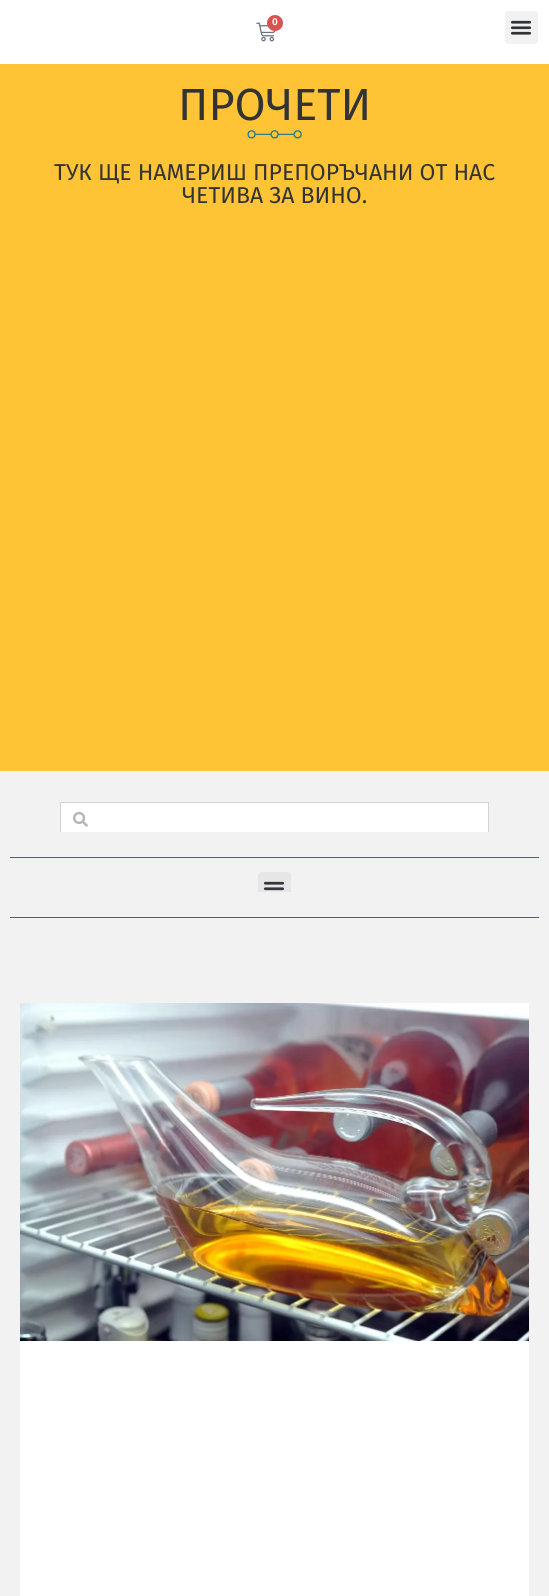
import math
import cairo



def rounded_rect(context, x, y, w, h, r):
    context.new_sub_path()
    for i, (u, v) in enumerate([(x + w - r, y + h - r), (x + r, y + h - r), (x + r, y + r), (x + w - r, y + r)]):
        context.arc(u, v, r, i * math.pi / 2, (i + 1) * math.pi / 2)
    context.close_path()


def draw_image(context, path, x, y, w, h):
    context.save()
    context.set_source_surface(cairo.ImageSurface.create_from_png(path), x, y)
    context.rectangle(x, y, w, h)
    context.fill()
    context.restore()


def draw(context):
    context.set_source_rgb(1, 1, 1)
    context.paint()
    draw_image(context, "images/1.png", 256, 22, 20, 20)
    context.set_source_rgb(217 / 255, 83 / 255, 79 / 255)
    context.arc(275, 23, 8, 0, 2 * math.pi)
    context.fill()
    context.set_source_rgb(242 / 255, 242 / 255, 242 / 255)
    rounded_rect(context, 505, 11, 33, 33, 3)
    context.fill()
    draw_image(context, "images/2.png", 510, 20, 22, 15)
    context.set_source_rgb(1, 196 / 255, 53 / 255)
    context.rectangle(0, 64, 549, 707)
    context.fill()
    draw_image(context, "images/3.png", 247, 130, 55, 9)
    context.set_source_rgb(242 / 255, 242 / 255, 242 / 255)
    context.rectangle(0, 771, 549, 61)
    context.fill()
    context.set_source_rgb(1, 1, 1)
    context.rectangle(61, 803, 427, 29)
    context.fill()
    context.rectangle(60.5, 802.5, 428, 34)
    context.set_source_rgb(209 / 255, 211 / 255, 212 / 255)
    context.set_line_width(1)
    context.stroke()
    draw_image(context, "images/4.png", 73, 811, 15, 16)
    context.set_source_rgb(242 / 255, 242 / 255, 242 / 255)
    context.rectangle(0, 832, 549, 60)
    context.fill()
    context.set_source_rgb(24 / 255, 115 / 255, 148 / 255)
    context.rectangle(10, 857, 529, 1)
    context.fill()
    context.set_source_rgb(230 / 255, 230 / 255, 230 / 255)
    rounded_rect(context, 258, 872, 33, 33, 3)
    context.fill()
    draw_image(context, "images/5.png", 263, 881, 22, 10)
    context.set_source_rgb(242 / 255, 242 / 255, 242 / 255)
    context.rectangle(0, 892, 549, 704)
    context.fill()
    context.set_source_rgb(24 / 255, 115 / 255, 148 / 255)
    context.rectangle(10, 917, 529, 1)
    context.fill()
    context.set_source_rgb(1, 1, 1)
    context.rectangle(20, 1341, 509, 255)
    context.fill()
    draw_image(context, "images/6.png", 20, 1003, 509, 338)
    context.select_font_face("Fira Sans SemiBold")
    context.set_font_size(10)
    context.move_to(272, 25)
    context.show_text("0")
    context.select_font_face("Fira Sans")
    context.set_font_size(45)
    context.set_source_rgb(50 / 255, 51 / 255, 53 / 255)
    context.move_to(178, 120)
    context.show_text("ПРОЧЕТИ")
    context.set_font_size(23)
    context.move_to(54, 180)
    context.show_text("ТУК ЩЕ НАМЕРИШ ПРЕПОРЪЧАНИ ОТ НАС")
    context.move_to(182, 203)
    context.show_text("ЧЕТИВА ЗА ВИНО.")


surface = cairo.ImageSurface(cairo.Format.RGB24, 549, 1596)
context = cairo.Context(surface)
options = cairo.FontOptions()
options.set_hint_metrics(cairo.HintMetrics.OFF)
options.set_hint_style(cairo.HintStyle.NONE)
context.set_font_options(options)
context.set_miter_limit(4)
draw(context)
surface.write_to_png("out.png")
